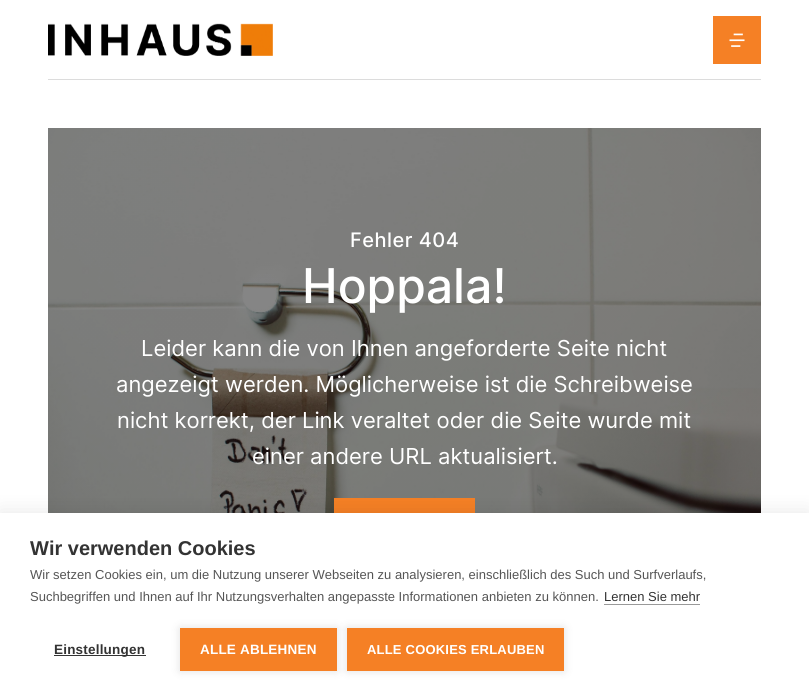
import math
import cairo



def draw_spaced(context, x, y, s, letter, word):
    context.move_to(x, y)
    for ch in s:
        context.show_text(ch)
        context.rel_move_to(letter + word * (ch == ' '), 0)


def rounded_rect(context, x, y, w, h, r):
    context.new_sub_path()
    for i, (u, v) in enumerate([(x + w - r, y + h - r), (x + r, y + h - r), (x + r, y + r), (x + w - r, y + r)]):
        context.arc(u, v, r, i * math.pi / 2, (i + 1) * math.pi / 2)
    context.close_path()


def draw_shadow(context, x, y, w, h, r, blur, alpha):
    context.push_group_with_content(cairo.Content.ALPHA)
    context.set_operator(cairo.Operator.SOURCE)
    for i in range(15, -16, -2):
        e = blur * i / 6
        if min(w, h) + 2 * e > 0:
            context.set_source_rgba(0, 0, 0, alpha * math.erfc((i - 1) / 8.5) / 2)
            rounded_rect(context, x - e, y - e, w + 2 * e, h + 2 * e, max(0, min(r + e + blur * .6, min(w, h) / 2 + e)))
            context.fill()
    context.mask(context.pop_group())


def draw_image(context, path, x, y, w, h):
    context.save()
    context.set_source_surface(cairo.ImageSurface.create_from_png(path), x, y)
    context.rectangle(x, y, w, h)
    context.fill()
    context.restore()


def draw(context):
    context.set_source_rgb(1, 1, 1)
    context.paint()
    context.set_source_rgb(220 / 255, 220 / 255, 220 / 255)
    context.rectangle(48, 79, 713, 1)
    context.fill()
    draw_image(context, "images/1.png", 48, 23, 225, 33)
    context.set_source_rgb(245 / 255, 128 / 255, 37 / 255)
    context.rectangle(713, 16, 48, 48)
    context.fill()
    draw_image(context, "images/2.png", 729, 33, 16, 14)
    draw_image(context, "images/3.png", 48, 128, 713, 385)
    context.rectangle(334, 498, 141, 15)
    context.fill()
    context.set_source_rgb(0, 0, 0)
    draw_shadow(context, 0, 513, 809, 183, 0, 10, 0.1)
    context.set_source_rgb(1, 1, 1)
    context.rectangle(0, 513, 809, 183)
    context.fill()
    context.set_source_rgb(153 / 255, 153 / 255, 153 / 255)
    context.rectangle(604, 604, 96, 1)
    context.fill()
    context.set_source_rgb(51 / 255, 51 / 255, 51 / 255)
    context.rectangle(54, 655, 92, 1)
    context.fill()
    context.set_source_rgb(0, 0, 0)
    draw_shadow(context, 180, 628, 157, 43, 0, 5, 0.12)
    context.set_source_rgb(245 / 255, 128 / 255, 37 / 255)
    context.rectangle(180, 628, 157, 43)
    context.fill()
    context.set_source_rgb(0, 0, 0)
    draw_shadow(context, 347, 628, 217, 43, 0, 5, 0.12)
    context.set_source_rgb(245 / 255, 128 / 255, 37 / 255)
    context.rectangle(347, 628, 217, 43)
    context.fill()
    context.select_font_face("Inter Medium")
    context.set_font_size(20)
    context.set_source_rgb(1, 1, 1)
    draw_spaced(context, 350, 247, "Fehler 404", 0.5, 0)
    context.set_font_size(48)
    context.move_to(302, 303)
    context.show_text("Hoppala!")
    context.select_font_face("Inter")
    context.set_font_size(22)
    context.move_to(141, 356)
    context.show_text("Leider kann die von Ihnen angeforderte Seite nicht")
    context.move_to(116, 392)
    context.show_text("angezeigt werden. Möglicherweise ist die Schreibweise")
    context.move_to(117, 428)
    context.show_text("nicht korrekt, der Link veraltet oder die Seite wurde mit")
    context.move_to(252, 464)
    context.show_text("einer andere URL aktualisiert.")
    context.select_font_face("Liberation Sans", cairo.FontSlant.NORMAL, cairo.FontWeight.BOLD)
    context.set_font_size(20)
    context.set_source_rgb(51 / 255, 51 / 255, 51 / 255)
    context.move_to(30, 555)
    context.show_text("Wir verwenden Cookies")
    context.select_font_face("Liberation Sans")
    context.set_font_size(13)
    context.set_source_rgb(85 / 255, 85 / 255, 85 / 255)
    context.move_to(30, 579)
    context.show_text("Wir setzen Cookies ein, um die Nutzung unserer Webseiten zu analysieren, einschließlich des Such und Surfverlaufs,")
    context.move_to(30, 601)
    context.show_text("Suchbegriffen und Ihnen auf Ihr Nutzungsverhalten angepasste Informationen anbieten zu können.")
    context.set_source_rgb(51 / 255, 51 / 255, 51 / 255)
    context.move_to(604, 601)
    context.show_text("Lernen Sie mehr")
    context.select_font_face("Liberation Sans", cairo.FontSlant.NORMAL, cairo.FontWeight.BOLD)
    context.set_font_size(13.5)
    draw_spaced(context, 54, 654, "Einstellungen", 0.2, 0)
    context.set_source_rgb(1, 1, 1)
    draw_spaced(context, 200, 654, "ALLE ABLEHNEN", 0.2, 0)
    context.set_font_size(13)
    draw_spaced(context, 367, 654, "ALLE COOKIES ERLAUBEN", 0.2, 0)


surface = cairo.ImageSurface(cairo.Format.RGB24, 809, 696)
context = cairo.Context(surface)
options = cairo.FontOptions()
options.set_hint_metrics(cairo.HintMetrics.OFF)
options.set_hint_style(cairo.HintStyle.NONE)
context.set_font_options(options)
context.set_miter_limit(4)
draw(context)
surface.write_to_png("out.png")
